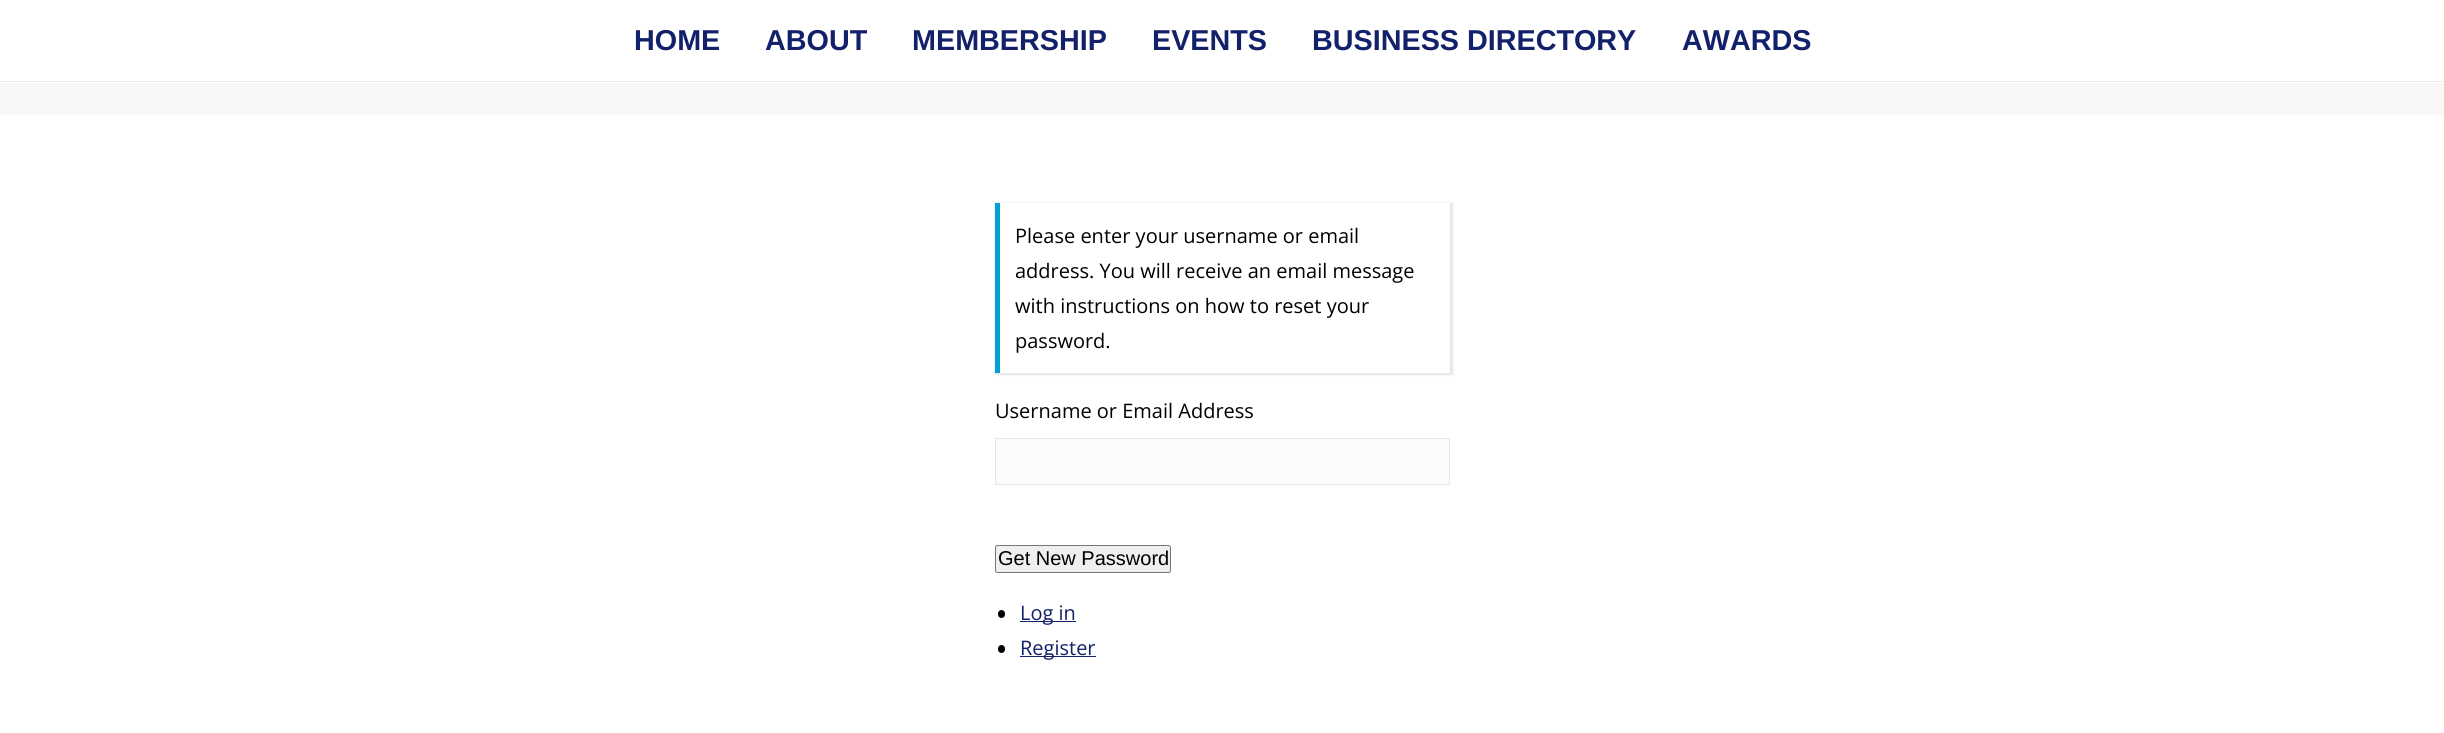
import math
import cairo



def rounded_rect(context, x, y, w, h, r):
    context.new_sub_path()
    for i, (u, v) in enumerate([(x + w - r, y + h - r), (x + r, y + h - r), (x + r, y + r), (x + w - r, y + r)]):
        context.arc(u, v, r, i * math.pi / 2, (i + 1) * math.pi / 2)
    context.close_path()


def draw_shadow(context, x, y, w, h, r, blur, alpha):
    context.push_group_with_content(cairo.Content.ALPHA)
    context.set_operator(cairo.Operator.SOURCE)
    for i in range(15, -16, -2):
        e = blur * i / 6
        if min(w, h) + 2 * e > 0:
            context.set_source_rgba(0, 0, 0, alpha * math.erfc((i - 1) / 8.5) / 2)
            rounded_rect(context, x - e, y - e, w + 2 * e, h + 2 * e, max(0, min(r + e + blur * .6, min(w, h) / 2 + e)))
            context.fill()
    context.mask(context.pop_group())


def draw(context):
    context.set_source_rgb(1, 1, 1)
    context.paint()
    context.set_source_rgb(230 / 255, 231 / 255, 233 / 255)
    context.rectangle(0, 81, 2444, 1)
    context.fill()
    context.set_source_rgb(248 / 255, 248 / 255, 249 / 255)
    context.rectangle(0, 83, 2444, 32)
    context.fill()
    context.save()
    context.set_fill_rule(cairo.FillRule.EVEN_ODD)
    context.new_path()
    context.move_to(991, 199)
    context.line_to(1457, 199)
    context.line_to(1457, 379)
    context.line_to(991, 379)
    context.close_path()
    context.move_to(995, 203)
    context.line_to(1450, 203)
    context.line_to(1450, 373)
    context.line_to(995, 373)
    context.close_path()
    context.clip()
    context.set_source_rgb(0, 0, 0)
    draw_shadow(context, 995, 203, 458, 172, 0, 1, 0.1)
    context.restore()
    context.set_source_rgb(0, 160 / 255, 210 / 255)
    context.rectangle(995, 203, 5, 170)
    context.fill()
    context.set_source_rgb(252 / 255, 252 / 255, 252 / 255)
    context.rectangle(995.5, 438.5, 454, 46)
    context.fill_preserve()
    context.set_source_rgb(228 / 255, 229 / 255, 231 / 255)
    context.set_line_width(1)
    context.stroke()
    context.set_source_rgb(239 / 255, 239 / 255, 239 / 255)
    rounded_rect(context, 995.5, 545.5, 175, 27, 2)
    context.fill_preserve()
    context.set_source_rgb(118 / 255, 118 / 255, 118 / 255)
    context.stroke()
    context.set_source_rgb(0, 0, 0)
    rounded_rect(context, 998, 610, 7, 8, 3.5)
    context.fill()
    context.set_source_rgb(19 / 255, 33 / 255, 106 / 255)
    context.rectangle(1020, 621, 56, 1)
    context.fill()
    context.set_source_rgb(0, 0, 0)
    rounded_rect(context, 998, 645, 7, 8, 3.5)
    context.fill()
    context.set_source_rgb(19 / 255, 33 / 255, 106 / 255)
    context.rectangle(1020, 656, 76, 1)
    context.fill()
    context.select_font_face("Arimo", cairo.FontSlant.NORMAL, cairo.FontWeight.BOLD)
    context.set_font_size(28.75)
    context.move_to(634, 50)
    context.show_text("HOME")
    context.move_to(765, 50)
    context.show_text("ABOUT")
    context.move_to(912, 50)
    context.show_text("MEMBERSHIP")
    context.move_to(1152, 50)
    context.show_text("EVENTS")
    context.move_to(1312, 50)
    context.show_text("BUSINESS DIRECTORY")
    context.move_to(1682, 50)
    context.show_text("AWARDS")
    context.select_font_face("Open Sans")
    context.set_font_size(20)
    context.set_source_rgb(0, 0, 0)
    context.move_to(1015, 243)
    context.show_text("Please enter your username or email")
    context.move_to(1015, 278)
    context.show_text("address. You will receive an email message")
    context.move_to(1015, 313)
    context.show_text("with instructions on how to reset your")
    context.move_to(1015, 348)
    context.show_text("password.")
    context.move_to(995, 418)
    context.show_text("Username or Email Address")
    context.select_font_face("Liberation Sans")
    context.move_to(998, 565)
    context.show_text("Get New Password")
    context.select_font_face("Open Sans")
    context.set_source_rgb(19 / 255, 33 / 255, 106 / 255)
    context.move_to(1020, 620)
    context.show_text("Log in")
    context.move_to(1020, 655)
    context.show_text("Register")


surface = cairo.ImageSurface(cairo.Format.RGB24, 2444, 733)
context = cairo.Context(surface)
options = cairo.FontOptions()
options.set_hint_metrics(cairo.HintMetrics.OFF)
options.set_hint_style(cairo.HintStyle.NONE)
context.set_font_options(options)
context.set_miter_limit(4)
draw(context)
surface.write_to_png("out.png")
